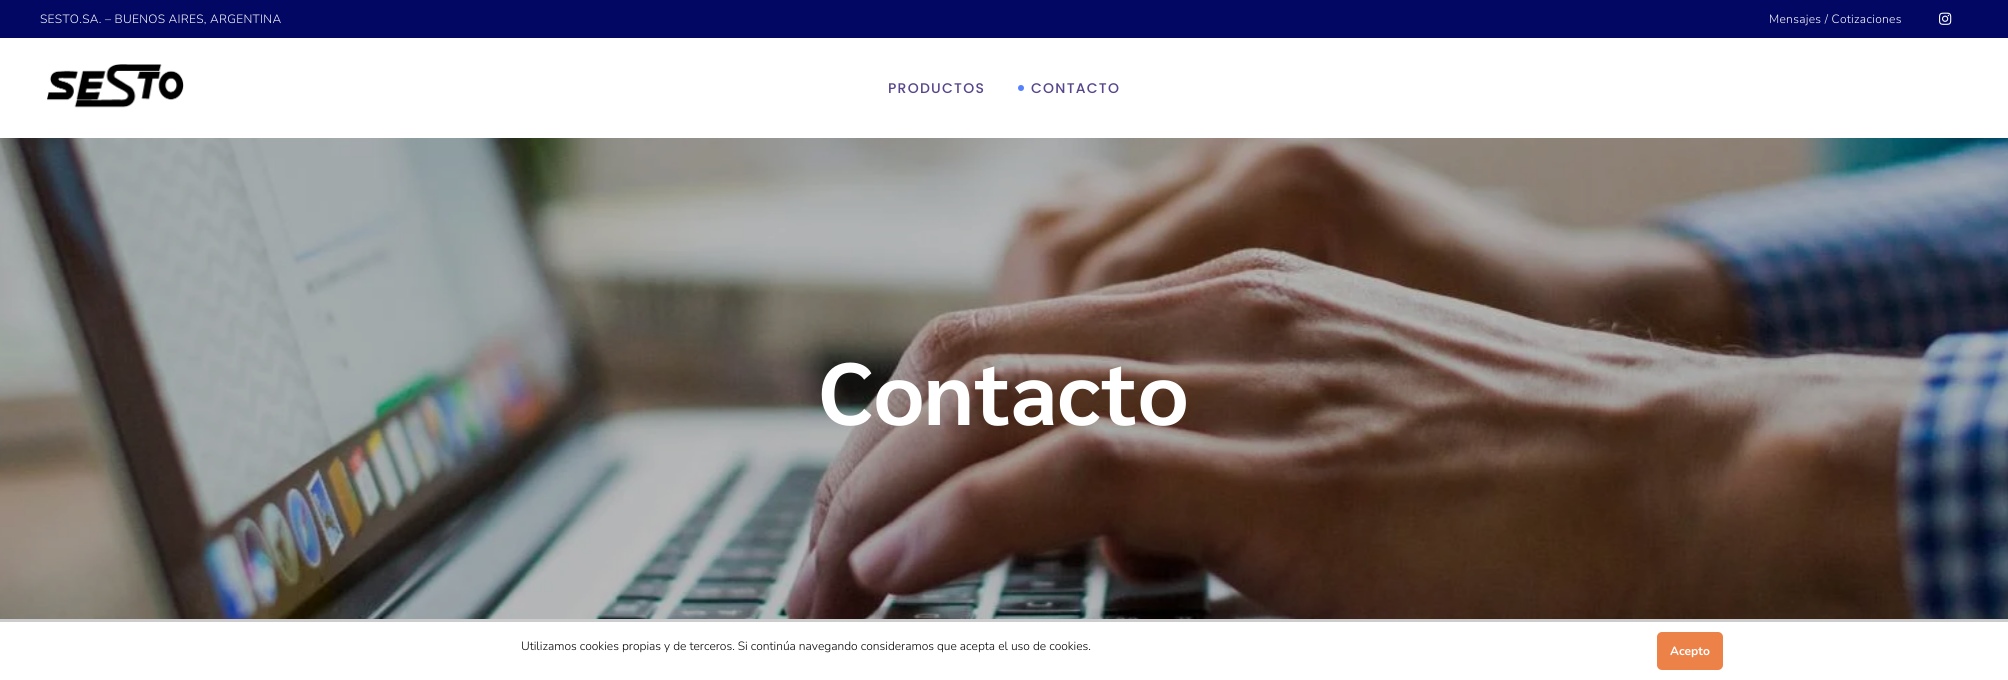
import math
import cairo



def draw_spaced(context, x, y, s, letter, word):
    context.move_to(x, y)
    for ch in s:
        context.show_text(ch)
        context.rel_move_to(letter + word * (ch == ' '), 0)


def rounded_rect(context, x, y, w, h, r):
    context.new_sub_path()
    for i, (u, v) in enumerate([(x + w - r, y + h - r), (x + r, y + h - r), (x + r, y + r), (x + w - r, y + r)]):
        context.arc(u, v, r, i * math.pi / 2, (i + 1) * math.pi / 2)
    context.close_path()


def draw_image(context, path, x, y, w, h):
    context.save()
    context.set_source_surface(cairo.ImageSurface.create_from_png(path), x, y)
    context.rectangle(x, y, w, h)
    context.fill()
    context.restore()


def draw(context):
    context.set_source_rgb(1, 1, 1)
    context.paint()
    context.set_source_rgb(2 / 255, 7 / 255, 99 / 255)
    context.rectangle(0, 0, 2008, 38)
    context.fill()
    draw_image(context, "images/1.png", 1939, 12, 13, 13)
    draw_image(context, "images/2.png", 47, 64, 137, 44)
    context.set_source_rgb(85 / 255, 128 / 255, 1)
    context.arc(1021, 88, 3, 0, 2 * math.pi)
    context.fill()
    draw_image(context, "images/3.png", 0, 138, 2008, 481)
    context.set_source_rgb(204 / 255, 204 / 255, 204 / 255)
    context.rectangle(0, 619, 2008, 3)
    context.fill()
    context.set_source_rgb(237 / 255, 130 / 255, 73 / 255)
    rounded_rect(context, 1657, 632, 66, 38, 5)
    context.fill()
    context.select_font_face("Nunito Light")
    context.set_font_size(12)
    context.set_source_rgb(1, 1, 1)
    draw_spaced(context, 40, 23, "SESTO.SA. – BUENOS AIRES, ARGENTINA", 0.3, 0)
    draw_spaced(context, 1769, 23, "Mensajes / Cotizaciones", 0.3, 0)
    context.select_font_face("Poppins Medium")
    context.set_font_size(14)
    context.set_source_rgb(88 / 255, 70 / 255, 140 / 255)
    draw_spaced(context, 888, 93, "PRODUCTOS", 1.25, 0)
    draw_spaced(context, 1031, 93, "CONTACTO", 1.25, 0)
    context.select_font_face("Sarabun", cairo.FontSlant.NORMAL, cairo.FontWeight.BOLD)
    context.set_font_size(88)
    context.set_source_rgb(1, 1, 1)
    context.move_to(819, 425)
    context.show_text("Contacto")
    context.select_font_face("Nunito Light")
    context.set_font_size(12)
    context.set_source_rgb(0, 0, 0)
    context.move_to(521, 650)
    context.show_text("Utilizamos cookies propias y de terceros. Si continúa navegando consideramos que acepta el uso de cookies.")
    context.select_font_face("Nunito", cairo.FontSlant.NORMAL, cairo.FontWeight.BOLD)
    context.set_source_rgb(1, 1, 1)
    context.move_to(1670, 655)
    context.show_text("Acepto")


surface = cairo.ImageSurface(cairo.Format.RGB24, 2008, 680)
context = cairo.Context(surface)
options = cairo.FontOptions()
options.set_hint_metrics(cairo.HintMetrics.OFF)
options.set_hint_style(cairo.HintStyle.NONE)
context.set_font_options(options)
context.set_miter_limit(4)
draw(context)
surface.write_to_png("out.png")
